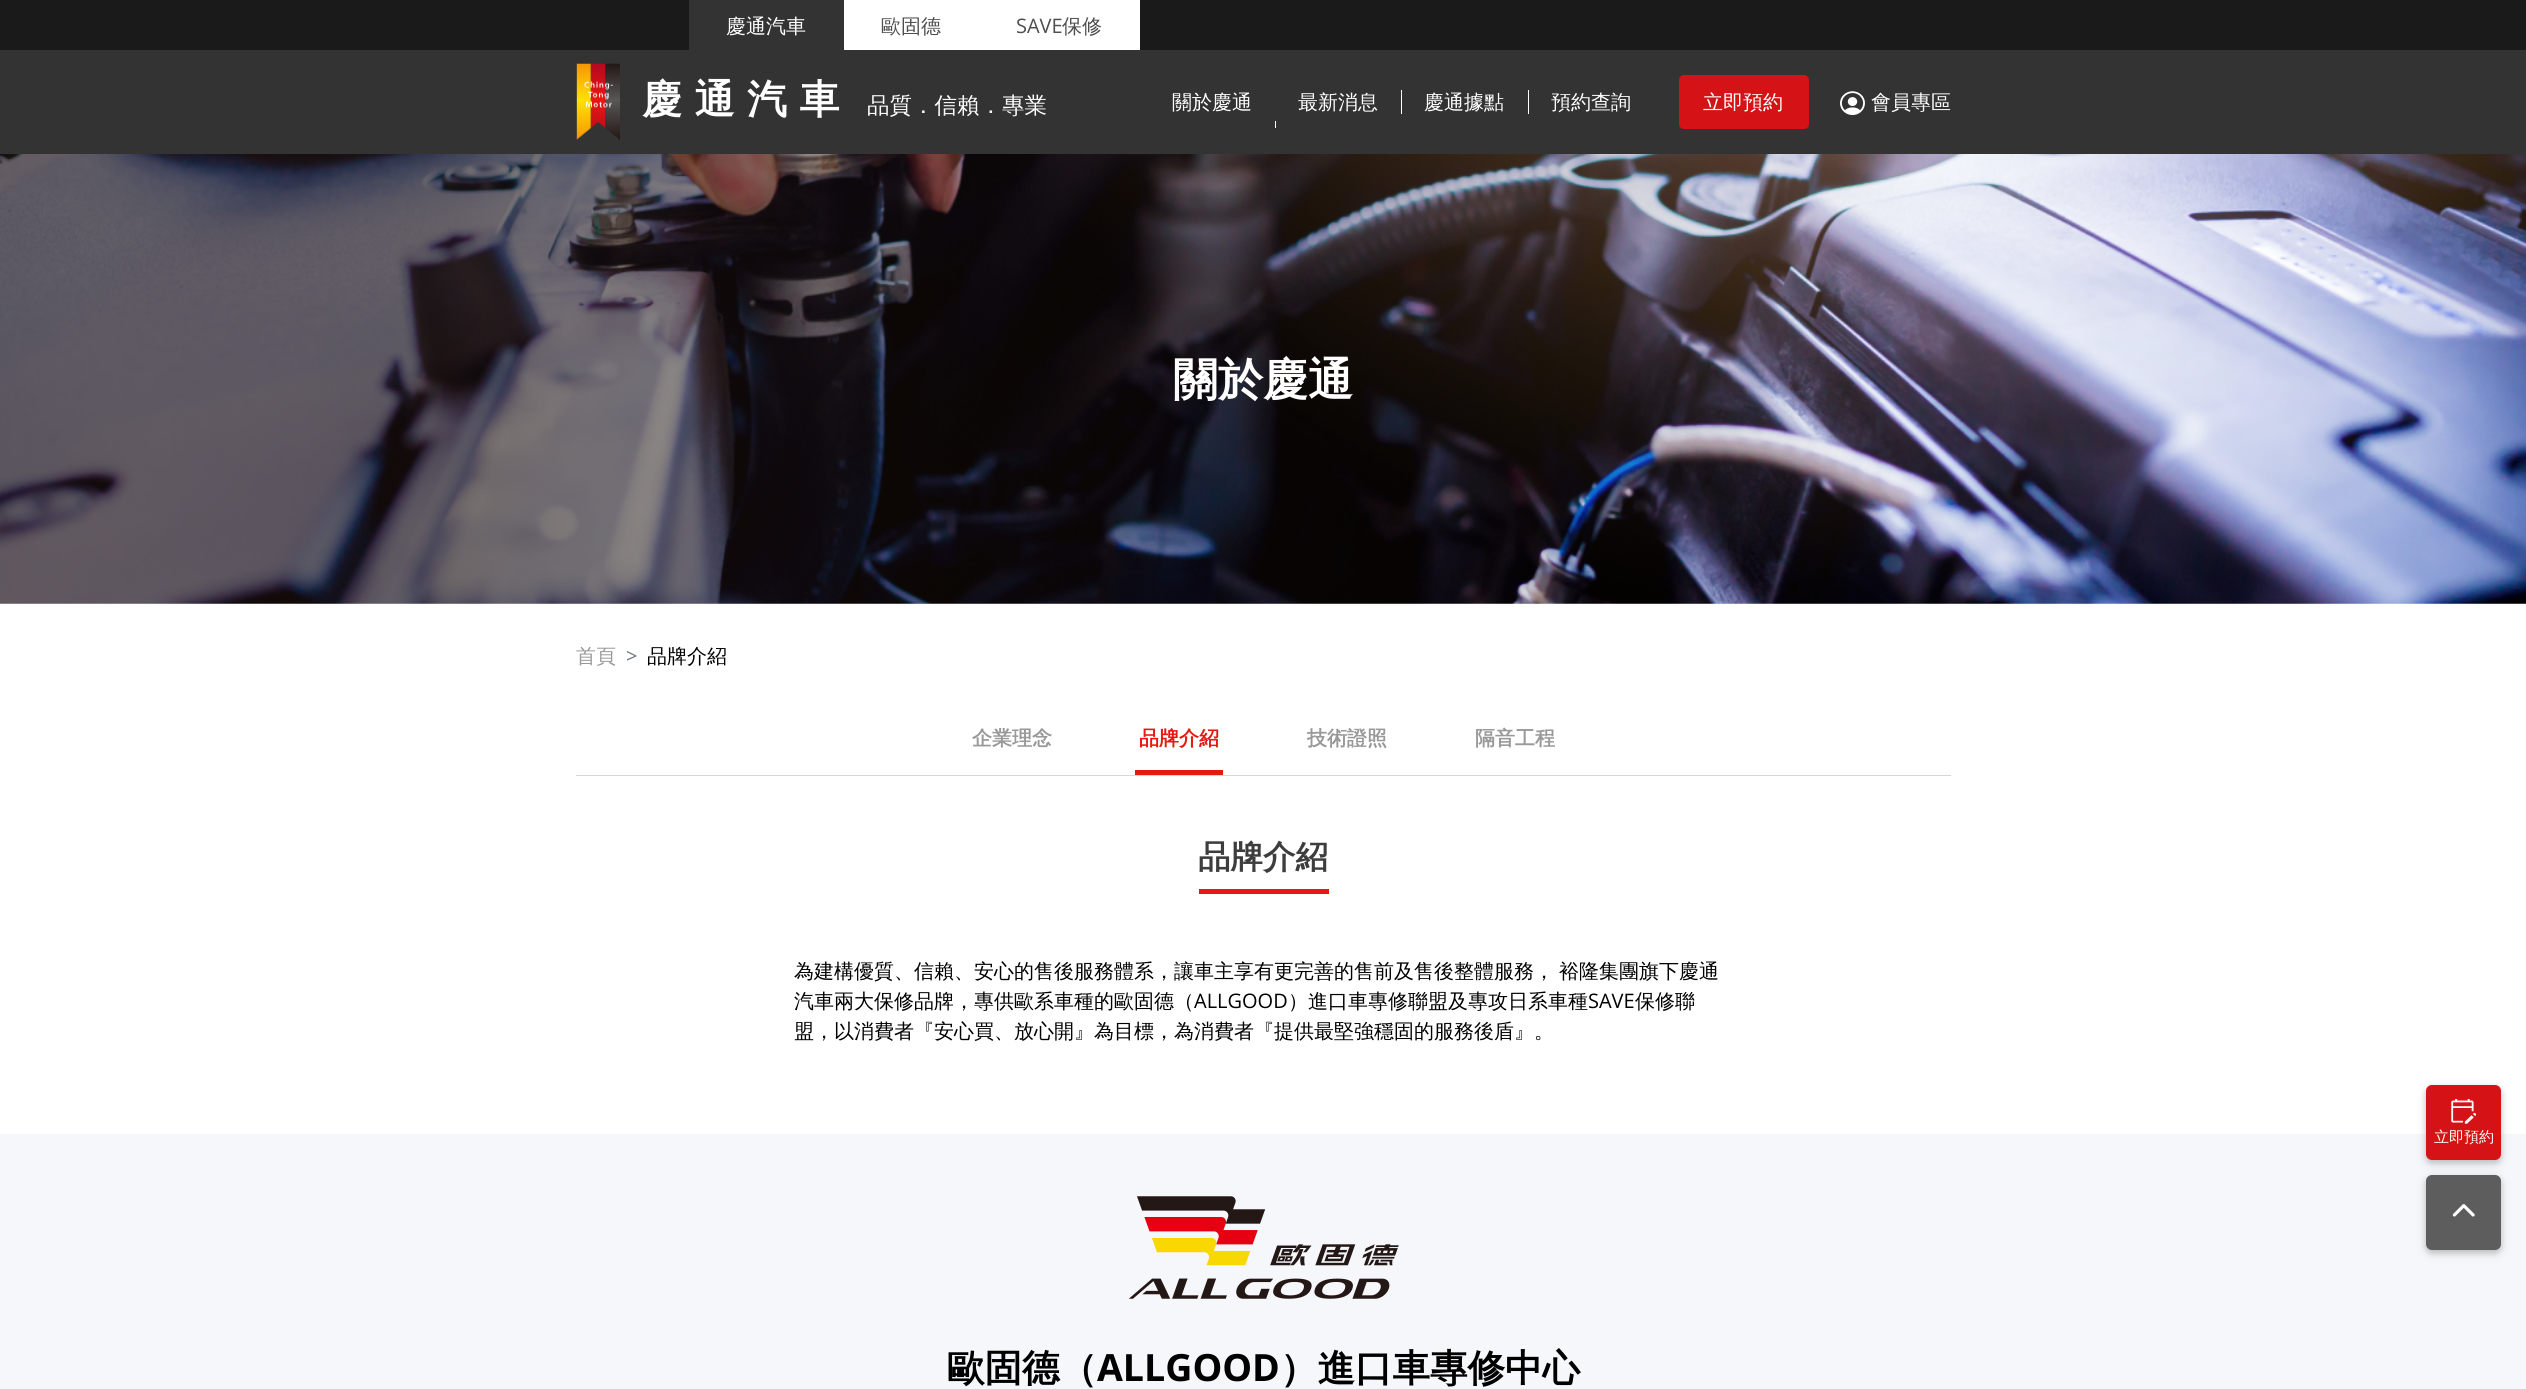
import math
import cairo



def draw_spaced(context, x, y, s, letter, word):
    context.move_to(x, y)
    for ch in s:
        context.show_text(ch)
        context.rel_move_to(letter + word * (ch == ' '), 0)


def rounded_rect(context, x, y, w, h, r):
    context.new_sub_path()
    for i, (u, v) in enumerate([(x + w - r, y + h - r), (x + r, y + h - r), (x + r, y + r), (x + w - r, y + r)]):
        context.arc(u, v, r, i * math.pi / 2, (i + 1) * math.pi / 2)
    context.close_path()


def draw_shadow(context, x, y, w, h, r, blur, alpha):
    context.push_group_with_content(cairo.Content.ALPHA)
    context.set_operator(cairo.Operator.SOURCE)
    for i in range(15, -16, -2):
        e = blur * i / 6
        if min(w, h) + 2 * e > 0:
            context.set_source_rgba(0, 0, 0, alpha * math.erfc((i - 1) / 8.5) / 2)
            rounded_rect(context, x - e, y - e, w + 2 * e, h + 2 * e, max(0, min(r + e + blur * .6, min(w, h) / 2 + e)))
            context.fill()
    context.mask(context.pop_group())


def draw_image(context, path, x, y, w, h):
    context.save()
    context.set_source_surface(cairo.ImageSurface.create_from_png(path), x, y)
    context.rectangle(x, y, w, h)
    context.fill()
    context.restore()


def draw(context):
    context.set_source_rgb(1, 1, 1)
    context.paint()
    context.set_source_rgb(26 / 255, 26 / 255, 26 / 255)
    context.rectangle(0, 0, 2526, 50)
    context.fill()
    context.set_source_rgb(51 / 255, 51 / 255, 51 / 255)
    context.rectangle(689, 0, 155, 50)
    context.fill()
    context.set_source_rgb(1, 1, 1)
    context.rectangle(844, 0, 296, 50)
    context.fill()
    context.set_source_rgb(51 / 255, 51 / 255, 51 / 255)
    context.rectangle(0, 50, 2526, 104)
    context.fill()
    draw_image(context, "images/1.png", 576, 63, 44, 77)
    context.set_source_rgb(1, 1, 1)
    context.rectangle(1275, 121, 1, 7)
    context.fill()
    context.rectangle(1401, 90, 1, 24)
    context.fill()
    context.rectangle(1528, 90, 1, 24)
    context.fill()
    context.set_source_rgb(213 / 255, 19 / 255, 22 / 255)
    rounded_rect(context, 1679, 75, 130, 54, 5)
    context.fill()
    draw_image(context, "images/2.png", 1840, 91, 25, 24)
    draw_image(context, "images/3.png", 0, 154, 2526, 450)
    context.set_source_rgb(214 / 255, 214 / 255, 214 / 255)
    context.rectangle(576, 775, 1375, 1)
    context.fill()
    context.set_source_rgb(230 / 255, 25 / 255, 17 / 255)
    context.rectangle(1135, 770, 88, 5)
    context.fill()
    context.rectangle(1199, 889, 130, 5)
    context.fill()
    context.set_source_rgb(246 / 255, 247 / 255, 250 / 255)
    context.rectangle(0, 1134, 2526, 255)
    context.fill()
    draw_image(context, "images/4.png", 1129, 1196, 270, 103)
    context.set_source_rgb(0, 0, 0)
    draw_shadow(context, 2426, 1088, 75, 75, 6, 6, 0.12)
    draw_shadow(context, 2426, 1088, 75, 75, 6, 3, 0.16)
    context.set_source_rgb(213 / 255, 19 / 255, 22 / 255)
    rounded_rect(context, 2426, 1085, 75, 75, 6)
    context.fill()
    draw_image(context, "images/5.png", 2451, 1099, 25, 25)
    context.set_source_rgb(0, 0, 0)
    draw_shadow(context, 2426, 1178, 75, 75, 6, 6, 0.12)
    draw_shadow(context, 2426, 1178, 75, 75, 6, 3, 0.16)
    context.set_source_rgb(93 / 255, 93 / 255, 93 / 255)
    rounded_rect(context, 2426, 1175, 75, 75, 6)
    context.fill()
    draw_image(context, "images/6.png", 2452, 1204, 23, 13)
    context.select_font_face("WenQuanYi Zen Hei Medium")
    context.set_font_size(20)
    context.set_source_rgb(1, 1, 1)
    context.move_to(726, 33)
    context.show_text("慶通汽車")
    context.set_source_rgb(78 / 255, 78 / 255, 78 / 255)
    context.move_to(881, 33)
    context.show_text("歐固德")
    context.select_font_face("Open Sans")
    context.move_to(1016, 33)
    context.show_text("SAVE")
    context.select_font_face("WenQuanYi Zen Hei Medium")
    context.move_to(1062, 33)
    context.show_text("保修")
    context.select_font_face("WenQuanYi Zen Hei", cairo.FontSlant.NORMAL, cairo.FontWeight.BOLD)
    context.set_font_size(40)
    context.set_source_rgb(1, 1, 1)
    draw_spaced(context, 642, 113, "慶通汽車", 12.5, 0)
    context.select_font_face("WenQuanYi Zen Hei Medium")
    context.set_font_size(22.5)
    context.move_to(867, 113)
    context.show_text("品質．信賴．專業")
    context.set_font_size(20)
    context.move_to(1172, 109)
    context.show_text("關於慶通")
    context.move_to(1298, 109)
    context.show_text("最新消息")
    context.move_to(1424, 109)
    context.show_text("慶通據點")
    context.move_to(1551, 109)
    context.show_text("預約查詢")
    context.move_to(1703, 109)
    context.show_text("立即預約")
    context.move_to(1871, 109)
    context.show_text("會員專區")
    context.select_font_face("WenQuanYi Zen Hei", cairo.FontSlant.NORMAL, cairo.FontWeight.BOLD)
    context.set_font_size(45)
    context.move_to(1173, 395)
    context.show_text("關於慶通")
    context.select_font_face("WenQuanYi Zen Hei Medium")
    context.set_font_size(20)
    context.set_source_rgb(153 / 255, 153 / 255, 153 / 255)
    context.move_to(576, 663)
    context.show_text("首頁")
    context.select_font_face("Open Sans")
    context.set_source_rgb(108 / 255, 117 / 255, 125 / 255)
    context.move_to(626, 663)
    context.show_text(">")
    context.select_font_face("WenQuanYi Zen Hei Medium")
    context.set_source_rgb(0, 0, 0)
    context.move_to(647, 663)
    context.show_text("品牌介紹")
    context.select_font_face("WenQuanYi Zen Hei", cairo.FontSlant.NORMAL, cairo.FontWeight.BOLD)
    context.set_source_rgb(153 / 255, 153 / 255, 153 / 255)
    context.move_to(972, 745)
    context.show_text("企業理念")
    context.set_source_rgb(230 / 255, 25 / 255, 17 / 255)
    context.move_to(1139, 745)
    context.show_text("品牌介紹")
    context.set_source_rgb(153 / 255, 153 / 255, 153 / 255)
    context.move_to(1307, 745)
    context.show_text("技術證照")
    context.move_to(1475, 745)
    context.show_text("隔音工程")
    context.set_font_size(32.5)
    context.set_source_rgb(61 / 255, 61 / 255, 61 / 255)
    context.move_to(1198, 868)
    context.show_text("品牌介紹")
    context.select_font_face("WenQuanYi Zen Hei Medium")
    context.set_font_size(20)
    context.set_source_rgb(0, 0, 0)
    draw_spaced(context, 794, 978, "為建構優質、信賴、安心的售後服務體系，讓車主享有更完善的售前及售後整體服務， 裕隆集團旗下慶通", 0, -1)
    context.move_to(794, 1008)
    context.show_text("汽車兩大保修品牌，專供歐系車種的歐固德（")
    context.select_font_face("Open Sans")
    context.move_to(1194, 1008)
    context.show_text("ALLGOOD")
    context.select_font_face("WenQuanYi Zen Hei Medium")
    context.move_to(1288, 1008)
    context.show_text("）進口車專修聯盟及專攻日系車種")
    context.select_font_face("Open Sans")
    context.move_to(1588, 1008)
    context.show_text("SAVE")
    context.select_font_face("WenQuanYi Zen Hei Medium")
    context.move_to(1635, 1008)
    context.show_text("保修聯")
    context.move_to(794, 1038)
    context.show_text("盟，以消費者『安心買、放心開』為目標，為消費者『提供最堅強穩固的服務後盾』。")
    context.select_font_face("WenQuanYi Zen Hei", cairo.FontSlant.NORMAL, cairo.FontWeight.BOLD)
    context.set_font_size(37.5)
    context.move_to(947, 1381)
    context.show_text("歐固德（")
    context.select_font_face("Open Sans", cairo.FontSlant.NORMAL, cairo.FontWeight.BOLD)
    context.move_to(1097, 1381)
    context.show_text("ALLGOOD")
    context.select_font_face("WenQuanYi Zen Hei", cairo.FontSlant.NORMAL, cairo.FontWeight.BOLD)
    context.move_to(1280, 1381)
    context.show_text("）進口車專修中心")
    context.select_font_face("WenQuanYi Zen Hei Medium")
    context.set_font_size(15)
    context.set_source_rgb(1, 1, 1)
    context.move_to(2434, 1142)
    context.show_text("立即預約")


surface = cairo.ImageSurface(cairo.Format.RGB24, 2526, 1389)
context = cairo.Context(surface)
options = cairo.FontOptions()
options.set_hint_metrics(cairo.HintMetrics.OFF)
options.set_hint_style(cairo.HintStyle.NONE)
context.set_font_options(options)
context.set_miter_limit(4)
draw(context)
surface.write_to_png("out.png")
